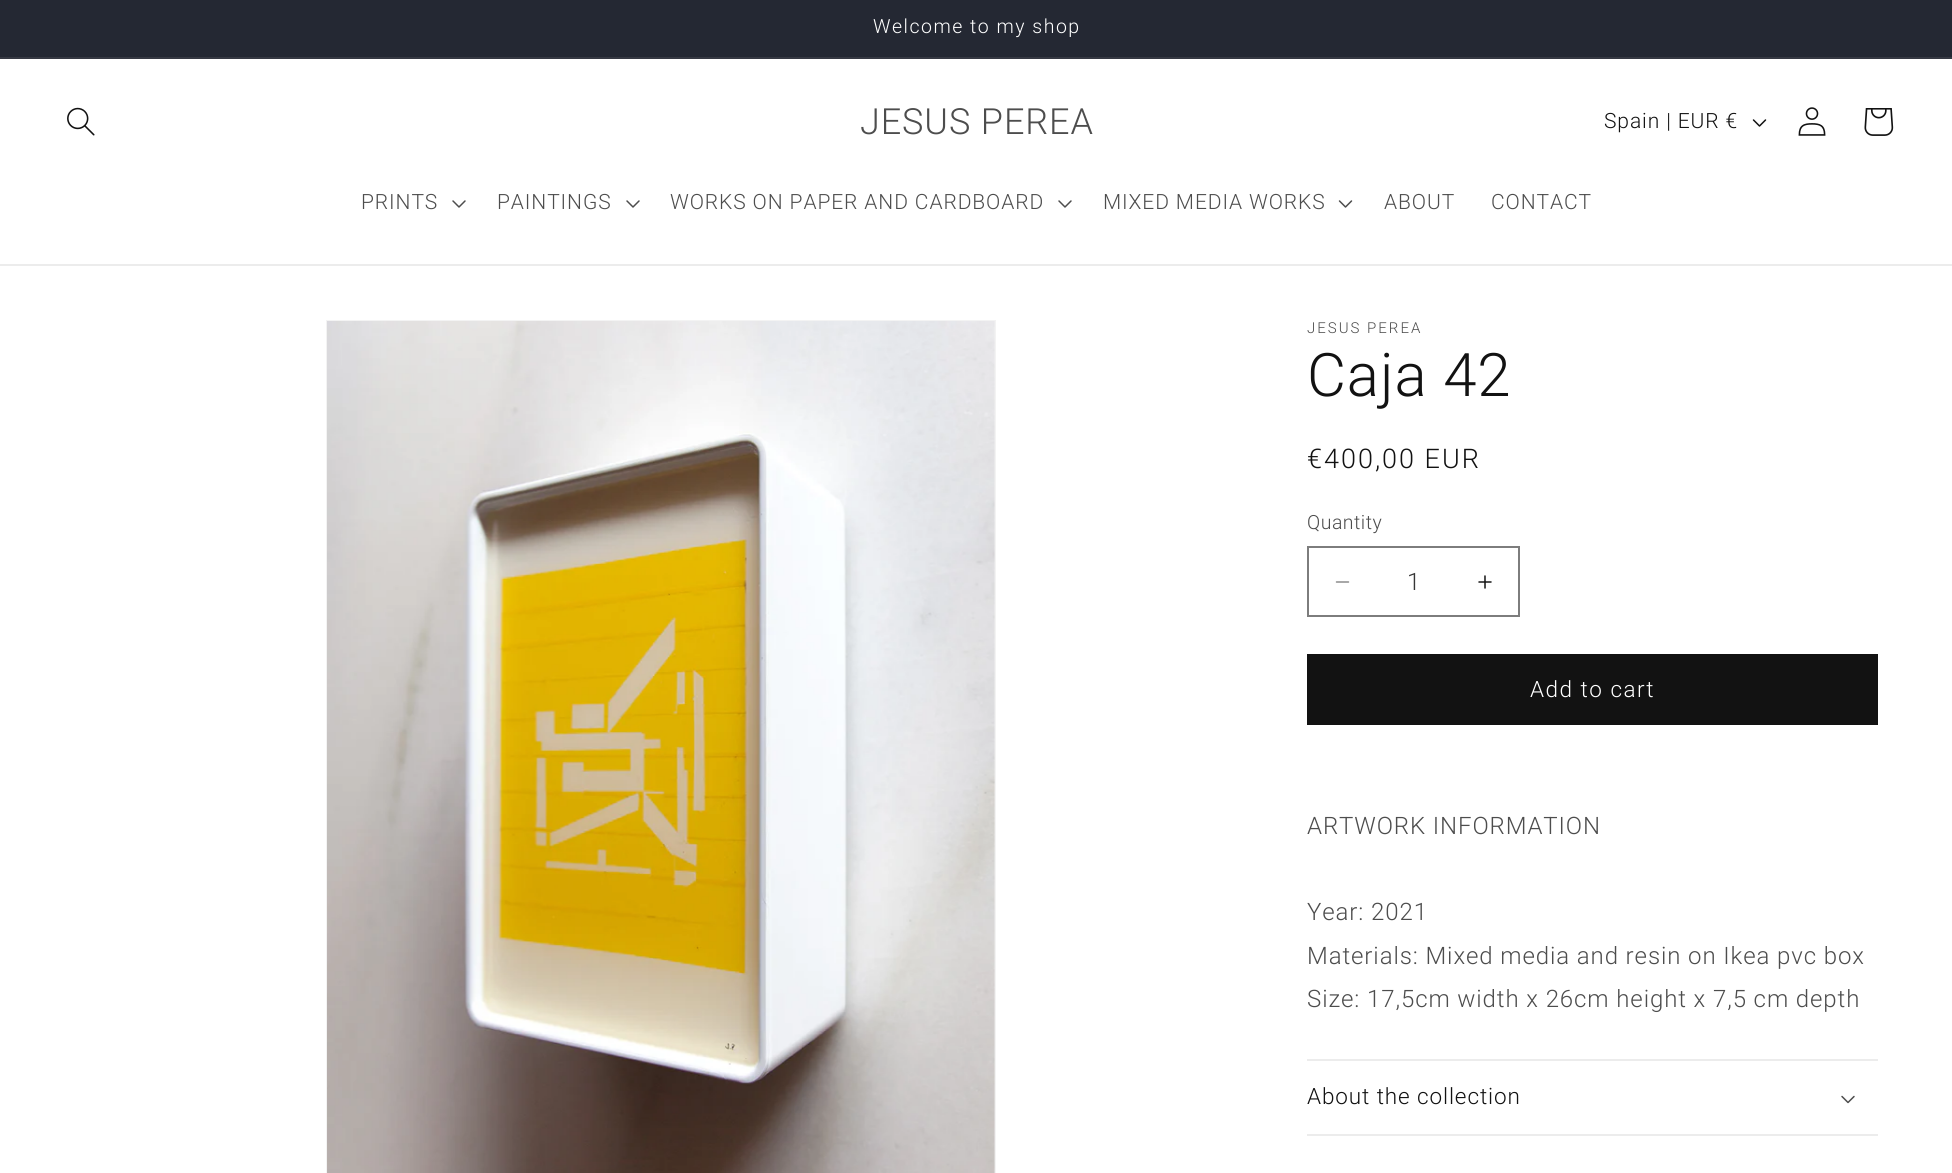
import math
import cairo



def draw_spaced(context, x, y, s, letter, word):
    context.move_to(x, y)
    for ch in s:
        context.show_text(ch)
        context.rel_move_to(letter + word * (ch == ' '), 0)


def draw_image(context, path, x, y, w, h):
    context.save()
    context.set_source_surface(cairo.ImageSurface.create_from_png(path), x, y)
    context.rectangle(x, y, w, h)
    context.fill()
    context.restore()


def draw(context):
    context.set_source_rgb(1, 1, 1)
    context.paint()
    context.set_source_rgb(36 / 255, 40 / 255, 51 / 255)
    context.rectangle(0, 0, 1952, 57)
    context.fill()
    context.set_source_rgb(54 / 255, 57 / 255, 67 / 255)
    context.rectangle(0, 57, 1952, 2)
    context.fill()
    context.set_source_rgb(236 / 255, 236 / 255, 236 / 255)
    context.rectangle(0, 264, 1952, 2)
    context.fill()
    draw_image(context, "images/1.png", 67, 107, 28, 29)
    draw_image(context, "images/2.png", 1752, 119, 15, 8)
    draw_image(context, "images/3.png", 1798, 107, 28, 29)
    draw_image(context, "images/4.png", 1864, 108, 30, 28)
    draw_image(context, "images/5.png", 452, 200, 14, 8)
    draw_image(context, "images/5.png", 626, 200, 14, 8)
    draw_image(context, "images/5.png", 1058, 200, 14, 8)
    draw_image(context, "images/6.png", 1338, 200, 15, 8)
    context.rectangle(327, 321, 668, 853)
    context.set_source_rgb(243 / 255, 243 / 255, 243 / 255)
    context.stroke()
    draw_image(context, "images/7.png", 327, 321, 668, 852)
    draw_image(context, "images/8.png", 1335, 581, 15, 2)
    draw_image(context, "images/9.png", 1478, 575, 14, 14)
    context.rectangle(1308, 547, 211, 69)
    context.set_source_rgb(125 / 255, 125 / 255, 125 / 255)
    context.stroke()
    context.set_source_rgb(18 / 255, 18 / 255, 18 / 255)
    context.rectangle(1307, 654, 571, 71)
    context.fill()
    context.set_source_rgb(236 / 255, 236 / 255, 236 / 255)
    context.rectangle(1307, 1059, 571, 2)
    context.fill()
    context.rectangle(1307, 1134, 571, 2)
    context.fill()
    draw_image(context, "images/10.png", 1841, 1095, 14, 9)
    context.select_font_face("Roboto Light")
    context.set_font_size(19.5)
    context.set_source_rgb(1, 1, 1)
    draw_spaced(context, 873, 33, "Welcome to my shop", 1.5, 0)
    context.set_font_size(36)
    context.set_source_rgb(77 / 255, 77 / 255, 77 / 255)
    draw_spaced(context, 860, 134, "JESUS PEREA", 0.9, 0)
    context.set_font_size(21)
    context.set_source_rgb(18 / 255, 18 / 255, 18 / 255)
    draw_spaced(context, 1604, 128, "Spain | EUR €", 0.9, 0)
    context.set_source_rgb(77 / 255, 77 / 255, 77 / 255)
    draw_spaced(context, 361, 209, "PRINTS", 0.9, 0)
    draw_spaced(context, 497, 209, "PAINTINGS", 0.9, 0)
    draw_spaced(context, 670, 209, "WORKS ON PAPER AND CARDBOARD", 0.9, 0)
    draw_spaced(context, 1103, 209, "MIXED MEDIA WORKS", 0.9, 0)
    draw_spaced(context, 1384, 209, "ABOUT", 0.9, 0)
    draw_spaced(context, 1491, 209, "CONTACT", 0.9, 0)
    context.set_font_size(15)
    draw_spaced(context, 1307, 333, "JESUS PEREA", 2, 0)
    context.set_font_size(60)
    context.set_source_rgb(18 / 255, 18 / 255, 18 / 255)
    draw_spaced(context, 1307, 396, "Caja 42", 0.9, 0)
    context.set_font_size(27)
    draw_spaced(context, 1307, 468, "€400,00 EUR", 2, 0)
    context.set_font_size(19.5)
    context.set_source_rgb(77 / 255, 77 / 255, 77 / 255)
    draw_spaced(context, 1307, 529, "Quantity", 0.5, 0)
    context.set_font_size(24)
    context.set_source_rgb(54 / 255, 54 / 255, 54 / 255)
    context.move_to(1407, 590)
    context.show_text("1")
    context.set_font_size(22.5)
    context.set_source_rgb(1, 1, 1)
    draw_spaced(context, 1530, 697, "Add to cart", 1.5, 0)
    context.set_font_size(24)
    context.set_source_rgb(77 / 255, 77 / 255, 77 / 255)
    draw_spaced(context, 1307, 834, "ARTWORK INFORMATION", 0.9, 0)
    draw_spaced(context, 1307, 920, "Year: 2021", 0.9, 0)
    draw_spaced(context, 1307, 964, "Materials: Mixed media and resin on Ikea pvc box", 0.9, 0)
    draw_spaced(context, 1307, 1007, "Size: 17,5cm width x 26cm height x 7,5 cm depth", 0.9, 0)
    context.set_font_size(22.5)
    context.set_source_rgb(18 / 255, 18 / 255, 18 / 255)
    draw_spaced(context, 1307, 1104, "About the collection", 0.9, 0)


surface = cairo.ImageSurface(cairo.Format.RGB24, 1952, 1173)
context = cairo.Context(surface)
options = cairo.FontOptions()
options.set_hint_metrics(cairo.HintMetrics.OFF)
options.set_hint_style(cairo.HintStyle.NONE)
context.set_font_options(options)
context.set_miter_limit(4)
draw(context)
surface.write_to_png("out.png")
